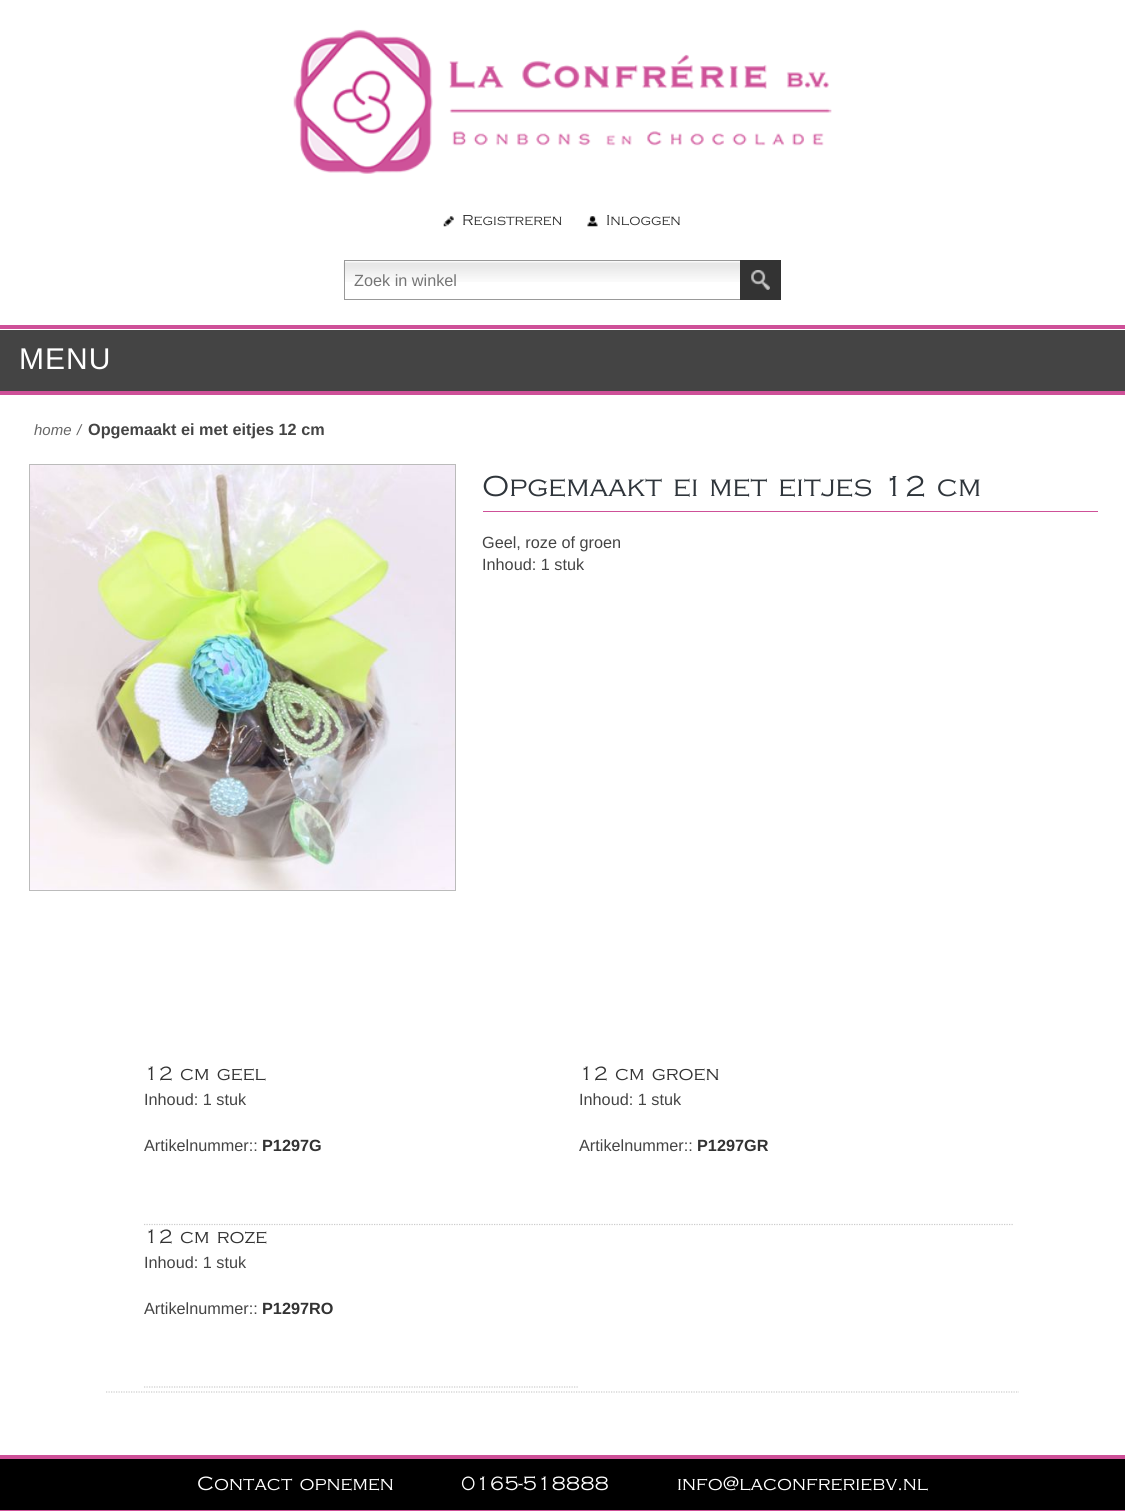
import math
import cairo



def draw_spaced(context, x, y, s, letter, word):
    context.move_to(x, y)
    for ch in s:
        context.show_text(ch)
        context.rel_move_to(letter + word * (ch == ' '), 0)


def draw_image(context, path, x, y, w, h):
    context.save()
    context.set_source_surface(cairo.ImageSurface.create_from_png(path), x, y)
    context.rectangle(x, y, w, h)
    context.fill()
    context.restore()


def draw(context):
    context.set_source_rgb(1, 1, 1)
    context.paint()
    draw_image(context, "images/1.png", 293, 29, 539, 145)
    draw_image(context, "images/2.png", 443, 216, 11, 11)
    draw_image(context, "images/3.png", 587, 216, 11, 11)
    draw_image(context, "images/4.png", 343, 261, 397, 21)
    context.rectangle(344.5, 260.5, 396, 39)
    context.set_source_rgb(153 / 255, 153 / 255, 153 / 255)
    context.set_line_width(1)
    context.stroke()
    context.set_source_rgb(51 / 255, 51 / 255, 51 / 255)
    context.rectangle(740, 260, 41, 40)
    context.fill()
    draw_image(context, "images/5.png", 751, 270, 19, 20)
    context.set_source_rgb(68 / 255, 68 / 255, 68 / 255)
    context.rectangle(0, 330, 1125, 61)
    context.fill()
    context.set_source_rgb(206 / 255, 80 / 255, 152 / 255)
    context.rectangle(0, 325, 1125, 4)
    context.fill()
    context.rectangle(0, 391, 1125, 4)
    context.fill()
    context.rectangle(29.5, 464.5, 426, 426)
    context.set_source_rgb(187 / 255, 187 / 255, 187 / 255)
    context.stroke()
    draw_image(context, "images/6.png", 30, 465, 425, 425)
    context.set_source_rgb(206 / 255, 80 / 255, 152 / 255)
    context.rectangle(483, 511, 615, 1)
    context.fill()
    context.new_path()
    context.move_to(106, 1392)
    context.line_to(1019, 1392)
    context.set_source_rgb(204 / 255, 204 / 255, 204 / 255)
    context.set_line_width(1.2)
    context.set_dash([1.25, 1.25])
    context.stroke()
    context.new_path()
    context.move_to(144, 1224.5)
    context.line_to(579, 1224.5)
    context.stroke()
    context.new_path()
    context.move_to(579, 1224.5)
    context.line_to(1014, 1224.5)
    context.stroke()
    context.new_path()
    context.move_to(144, 1387)
    context.line_to(579, 1387)
    context.stroke()
    context.set_source_rgb(0, 0, 0)
    context.rectangle(0, 1459, 1125, 51)
    context.fill()
    context.set_source_rgb(206 / 255, 80 / 255, 152 / 255)
    context.rectangle(0, 1455, 1125, 4)
    context.fill()
    context.rectangle(0, 1510, 1125, 1)
    context.fill()
    context.select_font_face("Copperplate")
    context.set_font_size(15)
    context.set_source_rgb(51 / 255, 51 / 255, 51 / 255)
    context.move_to(462, 225)
    context.show_text("Registreren")
    context.move_to(606, 225)
    context.show_text("Inloggen")
    context.select_font_face("Liberation Sans")
    context.set_font_size(16.25)
    context.set_source_rgb(117 / 255, 117 / 255, 117 / 255)
    context.move_to(354, 286)
    context.show_text("Zoek in winkel")
    context.set_font_size(30)
    context.set_source_rgb(1, 1, 1)
    draw_spaced(context, 19, 369, "MENU", 1, 0)
    context.select_font_face("Liberation Sans", cairo.FontSlant.ITALIC)
    context.set_font_size(15)
    context.set_source_rgb(102 / 255, 102 / 255, 102 / 255)
    context.move_to(34, 435)
    context.show_text("home")
    context.move_to(77, 435)
    context.show_text("/")
    context.select_font_face("Liberation Sans", cairo.FontSlant.NORMAL, cairo.FontWeight.BOLD)
    context.set_font_size(16.25)
    context.set_source_rgb(68 / 255, 68 / 255, 68 / 255)
    context.move_to(88, 435)
    context.show_text("Opgemaakt ei met eitjes 12 cm")
    context.select_font_face("Copperplate")
    context.set_font_size(30)
    context.set_source_rgb(47 / 255, 53 / 255, 59 / 255)
    context.move_to(482, 496)
    context.show_text("Opgemaakt ei met eitjes 12 cm")
    context.select_font_face("Liberation Sans")
    context.set_font_size(16.25)
    context.set_source_rgb(68 / 255, 68 / 255, 68 / 255)
    context.move_to(482, 548)
    context.show_text("Geel, roze of groen")
    context.move_to(482, 570)
    context.show_text("Inhoud: 1 stuk")
    context.select_font_face("Copperplate")
    context.set_font_size(20)
    context.set_source_rgb(51 / 255, 51 / 255, 51 / 255)
    context.move_to(144, 1080)
    context.show_text("12 cm geel")
    context.select_font_face("Liberation Sans")
    context.set_font_size(16.25)
    context.set_source_rgb(68 / 255, 68 / 255, 68 / 255)
    context.move_to(144, 1105)
    context.show_text("Inhoud: 1 stuk")
    context.move_to(144, 1151)
    context.show_text("Artikelnummer::")
    context.select_font_face("Liberation Sans", cairo.FontSlant.NORMAL, cairo.FontWeight.BOLD)
    context.set_source_rgb(51 / 255, 51 / 255, 51 / 255)
    context.move_to(262, 1151)
    context.show_text("P1297G")
    context.select_font_face("Copperplate")
    context.set_font_size(20)
    context.move_to(579, 1080)
    context.show_text("12 cm groen")
    context.select_font_face("Liberation Sans")
    context.set_font_size(16.25)
    context.set_source_rgb(68 / 255, 68 / 255, 68 / 255)
    context.move_to(579, 1105)
    context.show_text("Inhoud: 1 stuk")
    context.move_to(579, 1151)
    context.show_text("Artikelnummer::")
    context.select_font_face("Liberation Sans", cairo.FontSlant.NORMAL, cairo.FontWeight.BOLD)
    context.set_source_rgb(51 / 255, 51 / 255, 51 / 255)
    context.move_to(697, 1151)
    context.show_text("P1297GR")
    context.select_font_face("Copperplate")
    context.set_font_size(20)
    context.move_to(144, 1243)
    context.show_text("12 cm roze")
    context.select_font_face("Liberation Sans")
    context.set_font_size(16.25)
    context.set_source_rgb(68 / 255, 68 / 255, 68 / 255)
    context.move_to(144, 1268)
    context.show_text("Inhoud: 1 stuk")
    context.move_to(144, 1314)
    context.show_text("Artikelnummer::")
    context.select_font_face("Liberation Sans", cairo.FontSlant.NORMAL, cairo.FontWeight.BOLD)
    context.set_source_rgb(51 / 255, 51 / 255, 51 / 255)
    context.move_to(262, 1314)
    context.show_text("P1297RO")
    context.select_font_face("Copperplate")
    context.set_font_size(20)
    context.set_source_rgb(1, 1, 1)
    context.move_to(197, 1490)
    context.show_text("Contact opnemen")
    context.move_to(461, 1490)
    context.show_text("0165-518888")
    context.move_to(677, 1490)
    context.show_text("info@laconfreriebv.nl")


surface = cairo.ImageSurface(cairo.Format.RGB24, 1125, 1511)
context = cairo.Context(surface)
options = cairo.FontOptions()
options.set_hint_metrics(cairo.HintMetrics.OFF)
options.set_hint_style(cairo.HintStyle.NONE)
context.set_font_options(options)
context.set_miter_limit(4)
draw(context)
surface.write_to_png("out.png")
